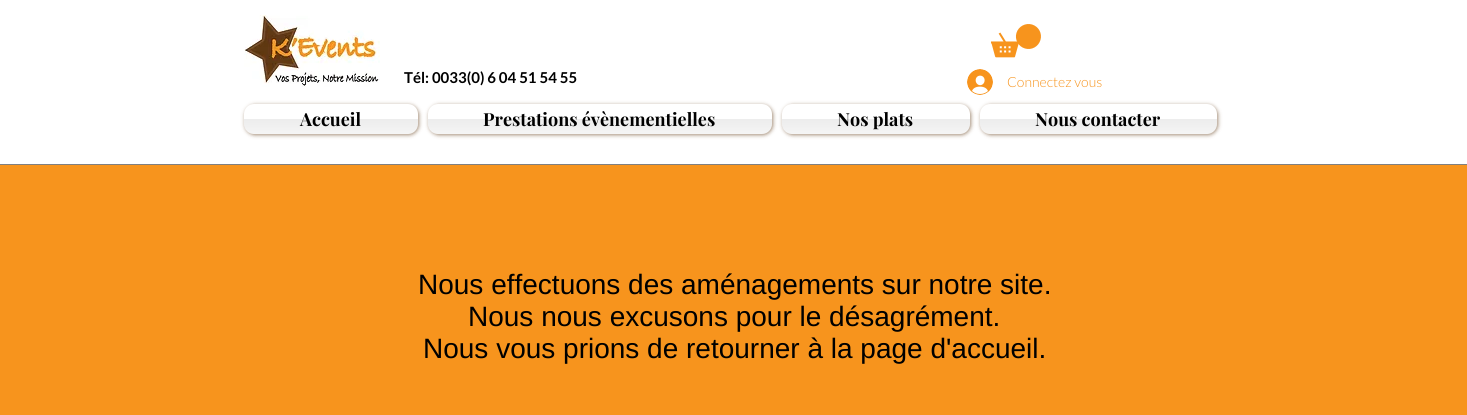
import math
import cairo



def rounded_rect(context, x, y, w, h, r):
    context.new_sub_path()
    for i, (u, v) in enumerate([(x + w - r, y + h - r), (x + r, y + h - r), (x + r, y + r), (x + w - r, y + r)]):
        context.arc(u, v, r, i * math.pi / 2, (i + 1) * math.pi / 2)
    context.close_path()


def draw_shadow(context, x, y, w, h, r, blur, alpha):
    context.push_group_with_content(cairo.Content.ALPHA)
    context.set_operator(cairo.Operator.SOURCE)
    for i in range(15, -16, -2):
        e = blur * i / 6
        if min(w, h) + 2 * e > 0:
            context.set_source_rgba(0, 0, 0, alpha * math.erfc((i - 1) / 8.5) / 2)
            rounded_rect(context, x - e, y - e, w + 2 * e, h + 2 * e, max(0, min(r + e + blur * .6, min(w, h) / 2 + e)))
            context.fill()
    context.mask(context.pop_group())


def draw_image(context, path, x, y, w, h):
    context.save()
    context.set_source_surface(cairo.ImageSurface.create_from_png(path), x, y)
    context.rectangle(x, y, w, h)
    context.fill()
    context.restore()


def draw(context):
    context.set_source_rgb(247 / 255, 148 / 255, 29 / 255)
    context.paint()
    context.set_source_rgb(1, 1, 1)
    context.rectangle(0, 0, 1467, 164)
    context.fill()
    context.set_source_rgb(128 / 255, 128 / 255, 128 / 255)
    context.rectangle(0, 164, 1467, 1)
    context.fill()
    draw_image(context, "images/1.png", 244, 15, 136, 72)
    draw_image(context, "images/2.png", 991, 24, 50, 34)
    draw_image(context, "images/3.png", 967, 69, 26, 26)
    context.set_source_rgb(96 / 255, 57 / 255, 19 / 255)
    draw_shadow(context, 245, 105, 174, 30, 10, 2, 0.6)
    context.set_source_rgb(1, 1, 1)
    rounded_rect(context, 244, 104, 174, 30, 10)
    context.fill()
    draw_image(context, "images/4.png", 244, 119, 174, 15)
    context.set_source_rgb(96 / 255, 57 / 255, 19 / 255)
    draw_shadow(context, 429, 105, 344, 30, 10, 2, 0.6)
    context.set_source_rgb(1, 1, 1)
    rounded_rect(context, 428, 104, 344, 30, 10)
    context.fill()
    draw_image(context, "images/5.png", 428, 119, 344, 15)
    context.set_source_rgb(96 / 255, 57 / 255, 19 / 255)
    draw_shadow(context, 783, 105, 188, 30, 10, 2, 0.6)
    context.set_source_rgb(1, 1, 1)
    rounded_rect(context, 782, 104, 188, 30, 10)
    context.fill()
    draw_image(context, "images/6.png", 782, 119, 188, 15)
    context.set_source_rgb(96 / 255, 57 / 255, 19 / 255)
    draw_shadow(context, 981, 105, 237, 30, 10, 2, 0.6)
    context.set_source_rgb(1, 1, 1)
    rounded_rect(context, 980, 104, 237, 30, 10)
    context.fill()
    draw_image(context, "images/7.png", 980, 119, 237, 15)
    context.select_font_face("Lato", cairo.FontSlant.NORMAL, cairo.FontWeight.BOLD)
    context.set_font_size(15)
    context.set_source_rgb(0, 0, 0)
    context.move_to(404, 83)
    context.show_text("Tél: 0033(0) 6 04 51 54 55")
    context.select_font_face("Lato Light")
    context.set_font_size(14)
    context.set_source_rgb(247 / 255, 148 / 255, 29 / 255)
    context.move_to(1007, 87)
    context.show_text("Connectez vous")
    context.select_font_face("Playfair Display", cairo.FontSlant.NORMAL, cairo.FontWeight.BOLD)
    context.set_font_size(18)
    context.set_source_rgb(0, 0, 0)
    context.move_to(300, 126)
    context.show_text("Accueil")
    context.move_to(483, 126)
    context.show_text("Prestations évènementielles")
    context.move_to(837, 126)
    context.show_text("Nos plats")
    context.move_to(1035, 126)
    context.show_text("Nous contacter")
    context.select_font_face("Liberation Sans")
    context.set_font_size(28)
    context.move_to(418, 294)
    context.show_text("Nous effectuons des aménagements sur notre site.")
    context.move_to(468, 326)
    context.show_text("Nous nous excusons pour le désagrément.")
    context.move_to(423, 358)
    context.show_text("Nous vous prions de retourner à la page d'accueil.")


surface = cairo.ImageSurface(cairo.Format.RGB24, 1467, 415)
context = cairo.Context(surface)
options = cairo.FontOptions()
options.set_hint_metrics(cairo.HintMetrics.OFF)
options.set_hint_style(cairo.HintStyle.NONE)
context.set_font_options(options)
context.set_miter_limit(4)
draw(context)
surface.write_to_png("out.png")
